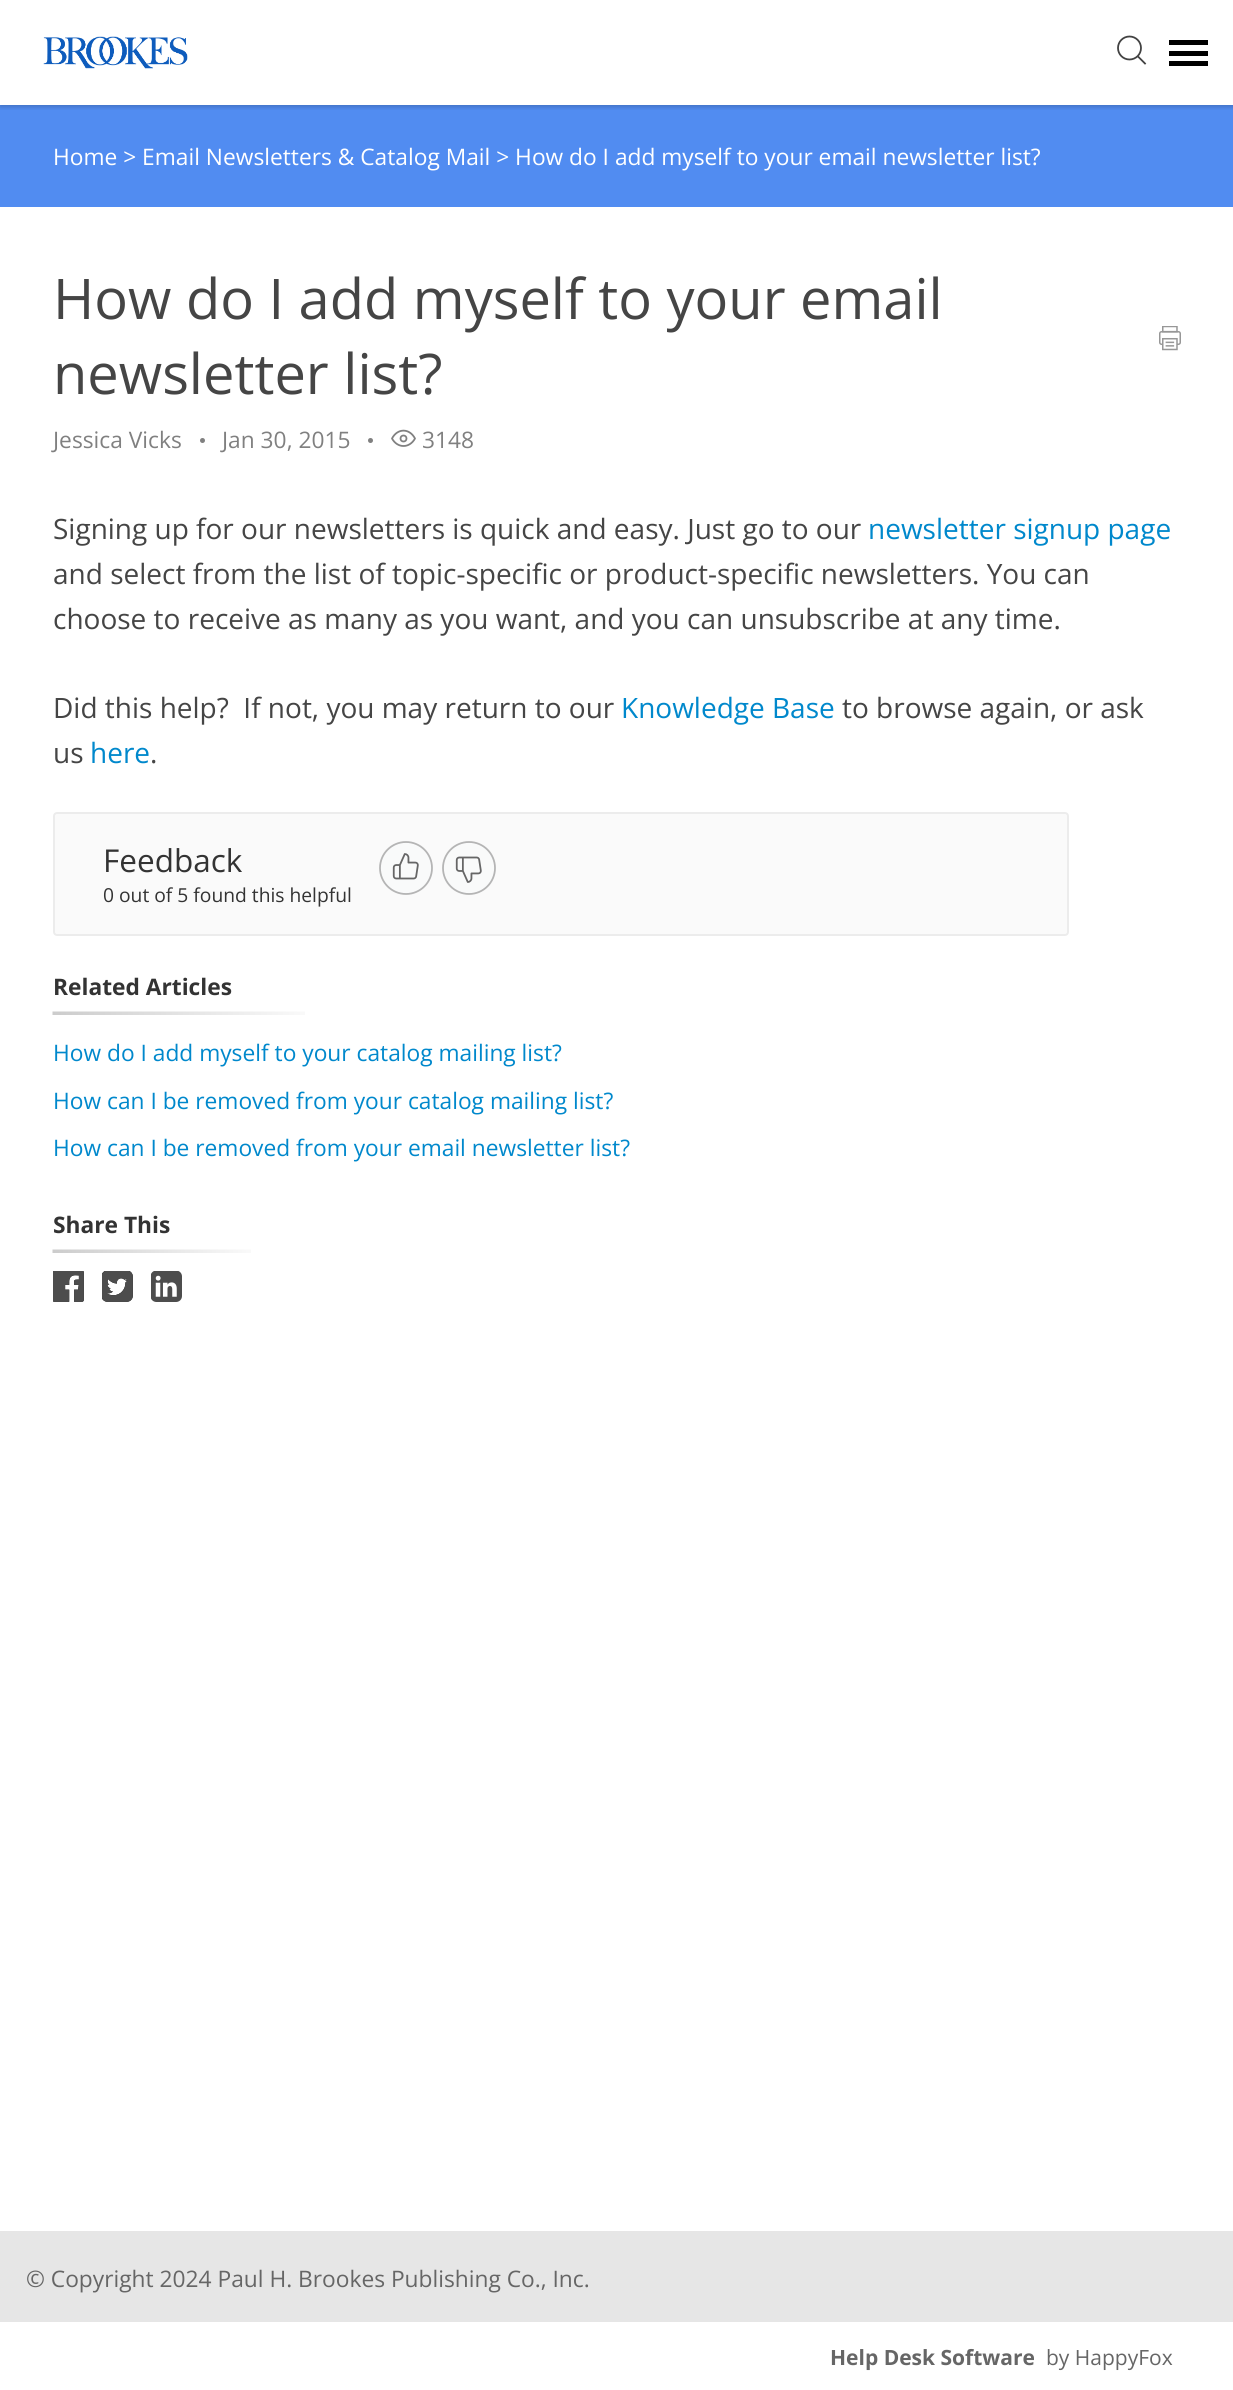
import math
import cairo



def rounded_rect(context, x, y, w, h, r):
    context.new_sub_path()
    for i, (u, v) in enumerate([(x + w - r, y + h - r), (x + r, y + h - r), (x + r, y + r), (x + w - r, y + r)]):
        context.arc(u, v, r, i * math.pi / 2, (i + 1) * math.pi / 2)
    context.close_path()


def draw_shadow(context, x, y, w, h, r, blur, alpha):
    context.push_group_with_content(cairo.Content.ALPHA)
    context.set_operator(cairo.Operator.SOURCE)
    for i in range(15, -16, -2):
        e = blur * i / 6
        if min(w, h) + 2 * e > 0:
            context.set_source_rgba(0, 0, 0, alpha * math.erfc((i - 1) / 8.5) / 2)
            rounded_rect(context, x - e, y - e, w + 2 * e, h + 2 * e, max(0, min(r + e + blur * .6, min(w, h) / 2 + e)))
            context.fill()
    context.mask(context.pop_group())


def draw_image(context, path, x, y, w, h):
    context.save()
    context.set_source_surface(cairo.ImageSurface.create_from_png(path), x, y)
    context.rectangle(x, y, w, h)
    context.fill()
    context.restore()


def draw(context):
    context.set_source_rgb(1, 1, 1)
    context.paint()
    context.set_source_rgb(81 / 255, 140 / 255, 241 / 255)
    context.rectangle(0, 105, 1233, 102)
    context.fill()
    context.save()
    context.rectangle(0, 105, 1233, 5)
    context.clip()
    context.set_source_rgb(0, 0, 0)
    draw_shadow(context, 0, 2, 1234, 105, 0, 2.5, 0.2)
    context.restore()
    draw_image(context, "images/1.png", 43, 36, 145, 33)
    context.arc(1129.5, 48, 11.5, 0, 2 * math.pi)
    context.set_source_rgb(66 / 255, 66 / 255, 66 / 255)
    context.set_line_width(1.8)
    context.stroke()
    context.new_path()
    context.move_to(1138.5, 57)
    context.line_to(1145, 63.5)
    context.set_line_cap(cairo.LineCap.SQUARE)
    context.stroke()
    context.set_source_rgb(0, 0, 0)
    context.rectangle(1169, 40, 39, 5)
    context.fill()
    context.rectangle(1169, 51, 39, 5)
    context.fill()
    context.rectangle(1169, 61, 39, 5)
    context.fill()
    draw_image(context, "images/2.png", 1159, 326, 22, 25)
    context.set_source_rgb(128 / 255, 128 / 255, 128 / 255)
    context.arc(202.5, 440.5, 2.5, 0, 2 * math.pi)
    context.fill()
    context.arc(370.5, 440.5, 2.5, 0, 2 * math.pi)
    context.fill()
    context.new_path()
    context.move_to(392, 438.5)
    context.curve_to(397.5, 428, 409.5, 428, 415, 438.5)
    context.curve_to(409.5, 448.5, 397.5, 448.5, 392, 438.5)
    context.close_path()
    context.set_line_cap(cairo.LineCap.ROUND)
    context.set_line_join(cairo.LineJoin.ROUND)
    context.stroke()
    context.arc(403.5, 438.5, 3, 0, 2 * math.pi)
    context.set_line_cap(cairo.LineCap.BUTT)
    context.set_line_join(cairo.LineJoin.MITER)
    context.stroke()
    context.set_source_rgb(250 / 255, 250 / 255, 250 / 255)
    rounded_rect(context, 54, 813, 1014, 122, 3)
    context.fill_preserve()
    context.set_source_rgb(236 / 255, 236 / 255, 236 / 255)
    context.set_line_width(2)
    context.stroke()
    draw_image(context, "images/3.png", 379, 841, 54, 54)
    draw_image(context, "images/4.png", 442, 841, 54, 54)
    draw_image(context, "images/5.png", 52, 1011, 253, 4)
    draw_image(context, "images/6.png", 52, 1249, 199, 4)
    draw_image(context, "images/7.png", 53, 1271, 31, 31)
    draw_image(context, "images/8.png", 102, 1271, 31, 31)
    draw_image(context, "images/9.png", 151, 1271, 31, 31)
    context.set_source_rgb(230 / 255, 230 / 255, 230 / 255)
    context.rectangle(0, 2231, 1233, 91)
    context.fill()
    context.select_font_face("Open Sans")
    context.set_font_size(22.75)
    context.set_source_rgb(1, 1, 1)
    context.move_to(53, 165)
    context.show_text("Home > Email Newsletters & Catalog Mail > How do I add myself to your email newsletter list?")
    context.set_font_size(56)
    context.set_source_rgb(69 / 255, 69 / 255, 69 / 255)
    context.move_to(53, 319)
    context.show_text("How do I add myself to your email")
    context.move_to(53, 394)
    context.show_text("newsletter list?")
    context.set_font_size(22.75)
    context.set_source_rgb(128 / 255, 128 / 255, 128 / 255)
    context.move_to(53, 448)
    context.show_text("Jessica Vicks")
    context.move_to(222, 448)
    context.show_text("Jan 30, 2015")
    context.move_to(422, 448)
    context.show_text("3148")
    context.set_font_size(28)
    context.set_source_rgb(69 / 255, 69 / 255, 69 / 255)
    context.move_to(53, 539)
    context.show_text("Signing up for our newsletters is quick and easy. Just go to our")
    context.set_source_rgb(0, 136 / 255, 204 / 255)
    context.move_to(868, 539)
    context.show_text("newsletter signup page")
    context.set_source_rgb(69 / 255, 69 / 255, 69 / 255)
    context.move_to(53, 584)
    context.show_text("and select from the list of topic-specific or product-specific newsletters. You can")
    context.move_to(53, 629)
    context.show_text("choose to receive as many as you want, and you can unsubscribe at any time.")
    context.move_to(53, 718)
    context.show_text("Did this help?  If not, you may return to our")
    context.set_source_rgb(0, 136 / 255, 204 / 255)
    context.move_to(621, 718)
    context.show_text("Knowledge Base")
    context.set_source_rgb(69 / 255, 69 / 255, 69 / 255)
    context.move_to(842, 718)
    context.show_text("to browse again, or ask")
    context.move_to(53, 763)
    context.show_text("us")
    context.set_source_rgb(0, 136 / 255, 204 / 255)
    context.move_to(90, 763)
    context.show_text("here")
    context.set_source_rgb(69 / 255, 69 / 255, 69 / 255)
    context.move_to(150, 763)
    context.show_text(".")
    context.set_font_size(31.5)
    context.set_source_rgb(51 / 255, 51 / 255, 51 / 255)
    context.move_to(103, 872)
    context.show_text("Feedback")
    context.set_font_size(19.25)
    context.move_to(103, 902)
    context.show_text("0 out of 5 found this helpful")
    context.select_font_face("Open Sans", cairo.FontSlant.NORMAL, cairo.FontWeight.BOLD)
    context.set_font_size(22.75)
    context.move_to(53, 995)
    context.show_text("Related Articles")
    context.select_font_face("Open Sans")
    context.set_source_rgb(0, 136 / 255, 204 / 255)
    context.move_to(53, 1061)
    context.show_text("How do I add myself to your catalog mailing list?")
    context.move_to(53, 1109)
    context.show_text("How can I be removed from your catalog mailing list?")
    context.move_to(53, 1156)
    context.show_text("How can I be removed from your email newsletter list?")
    context.select_font_face("Open Sans", cairo.FontSlant.NORMAL, cairo.FontWeight.BOLD)
    context.set_source_rgb(51 / 255, 51 / 255, 51 / 255)
    context.move_to(53, 1233)
    context.show_text("Share This")
    context.select_font_face("Open Sans")
    context.set_source_rgb(102 / 255, 102 / 255, 102 / 255)
    context.move_to(26, 2287)
    context.show_text("© Copyright 2024 Paul H. Brookes Publishing Co., Inc.")
    context.select_font_face("Open Sans", cairo.FontSlant.NORMAL, cairo.FontWeight.BOLD)
    context.set_font_size(21)
    context.move_to(830, 2365)
    context.show_text("Help Desk Software")
    context.select_font_face("Open Sans")
    context.move_to(1046, 2365)
    context.show_text("by HappyFox")


surface = cairo.ImageSurface(cairo.Format.RGB24, 1233, 2390)
context = cairo.Context(surface)
options = cairo.FontOptions()
options.set_hint_metrics(cairo.HintMetrics.OFF)
options.set_hint_style(cairo.HintStyle.NONE)
context.set_font_options(options)
context.set_miter_limit(4)
draw(context)
surface.write_to_png("out.png")
